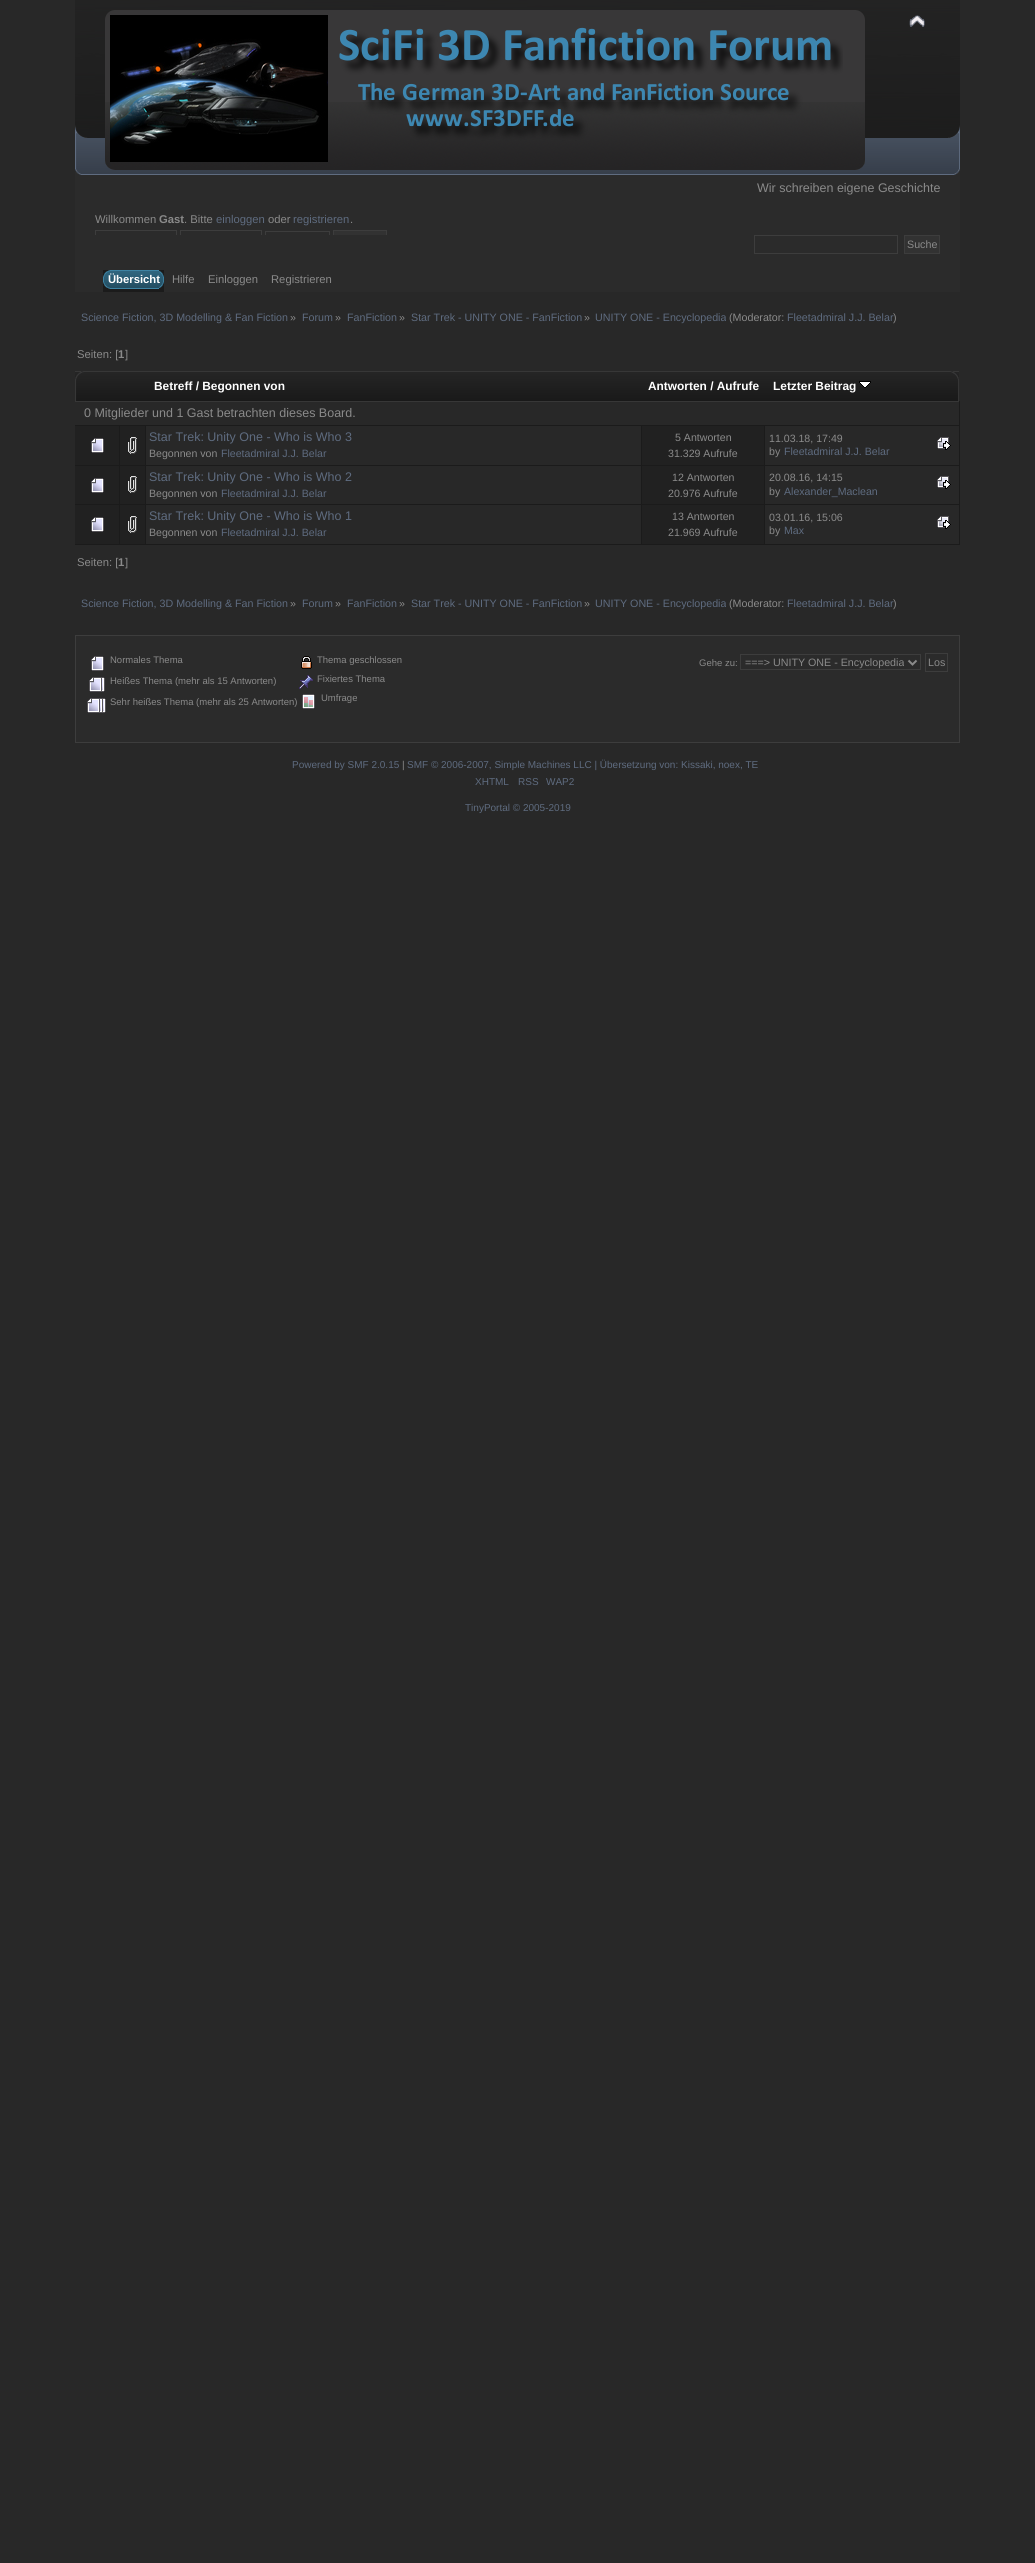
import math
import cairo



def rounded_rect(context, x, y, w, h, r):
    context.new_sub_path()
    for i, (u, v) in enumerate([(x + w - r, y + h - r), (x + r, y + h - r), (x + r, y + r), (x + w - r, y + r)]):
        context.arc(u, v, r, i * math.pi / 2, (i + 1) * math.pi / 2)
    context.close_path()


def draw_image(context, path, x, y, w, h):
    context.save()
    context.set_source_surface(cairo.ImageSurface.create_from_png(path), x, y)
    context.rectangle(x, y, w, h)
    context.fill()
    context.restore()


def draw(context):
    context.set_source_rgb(40 / 255, 40 / 255, 40 / 255)
    context.paint()
    context.set_source_rgb(43 / 255, 43 / 255, 43 / 255)
    context.rectangle(75, 171, 885, 121)
    context.fill()
    draw_image(context, "images/1.png", 75, 0, 20, 175)
    draw_image(context, "images/2.png", 95, 0, 865, 175)
    context.set_source_rgb(56 / 255, 55 / 255, 56 / 255)
    rounded_rect(context, 105, 10, 760, 160, 10)
    context.fill()
    draw_image(context, "images/3.png", 105, 102, 760, 68)
    draw_image(context, "images/4.png", 110, 15, 733, 147)
    draw_image(context, "images/5.png", 909, 15, 16, 12)
    context.save()
    context.rectangle(95, 210, 845, 25)
    context.clip()
    context.rectangle(95.5, 230.5, 81, 17)
    context.set_source_rgb(61 / 255, 61 / 255, 61 / 255)
    context.set_line_width(1)
    context.stroke()
    context.rectangle(180.5, 230.5, 81, 17)
    context.stroke()
    context.rectangle(265.5, 231.5, 64, 15)
    context.stroke()
    context.restore()
    context.set_source_rgb(50 / 255, 50 / 255, 50 / 255)
    context.rectangle(334, 231, 53, 4)
    context.fill()
    context.save()
    context.rectangle(95, 210, 845, 25)
    context.clip()
    context.rectangle(333.5, 230.5, 53, 17)
    context.set_source_rgb(61 / 255, 61 / 255, 61 / 255)
    context.set_line_width(1)
    context.stroke()
    context.restore()
    context.rectangle(754.5, 235.5, 143, 18)
    context.set_source_rgb(61 / 255, 61 / 255, 61 / 255)
    context.set_line_width(1)
    context.stroke()
    context.set_source_rgb(50 / 255, 50 / 255, 50 / 255)
    context.rectangle(904.5, 235.5, 35, 18)
    context.fill_preserve()
    context.set_source_rgb(61 / 255, 61 / 255, 61 / 255)
    context.stroke()
    draw_image(context, "images/6.png", 159, 270, 5, 22)
    draw_image(context, "images/7.png", 103, 270, 56, 22)
    draw_image(context, "images/8.png", 75, 371, 71, 31)
    draw_image(context, "images/9.png", 146, 371, 495, 31)
    draw_image(context, "images/10.png", 641, 371, 124, 31)
    draw_image(context, "images/11.png", 765, 371, 194, 31)
    draw_image(context, "images/12.png", 859, 381, 12, 7)
    context.set_source_rgb(27 / 255, 27 / 255, 27 / 255)
    context.rectangle(959, 401, 1, 144)
    context.fill()
    context.rectangle(764, 544, 196, 1)
    context.fill()
    context.rectangle(764, 504, 1, 41)
    context.fill()
    context.rectangle(764, 504, 196, 1)
    context.fill()
    context.rectangle(764, 465, 1, 40)
    context.fill()
    context.rectangle(764, 465, 196, 1)
    context.fill()
    context.rectangle(764, 425, 1, 41)
    context.fill()
    context.rectangle(641, 544, 124, 1)
    context.fill()
    context.rectangle(641, 504, 1, 41)
    context.fill()
    context.rectangle(641, 504, 124, 1)
    context.fill()
    context.rectangle(641, 465, 1, 40)
    context.fill()
    context.rectangle(641, 465, 124, 1)
    context.fill()
    context.rectangle(641, 425, 1, 41)
    context.fill()
    context.rectangle(145, 544, 497, 1)
    context.fill()
    context.rectangle(145, 504, 1, 41)
    context.fill()
    context.rectangle(145, 504, 497, 1)
    context.fill()
    context.rectangle(145, 465, 1, 40)
    context.fill()
    context.rectangle(145, 465, 497, 1)
    context.fill()
    context.rectangle(145, 425, 1, 41)
    context.fill()
    context.rectangle(119, 544, 27, 1)
    context.fill()
    context.rectangle(119, 504, 1, 41)
    context.fill()
    context.rectangle(119, 504, 27, 1)
    context.fill()
    context.rectangle(119, 465, 1, 40)
    context.fill()
    context.rectangle(119, 465, 27, 1)
    context.fill()
    context.rectangle(119, 425, 1, 41)
    context.fill()
    context.rectangle(75, 425, 885, 1)
    context.fill()
    context.set_source_rgb(33 / 255, 33 / 255, 33 / 255)
    context.rectangle(75, 426, 44, 39)
    context.fill()
    context.set_source_rgb(27 / 255, 27 / 255, 27 / 255)
    context.rectangle(75, 465, 45, 1)
    context.fill()
    draw_image(context, "images/13.png", 91, 438, 13, 15)
    context.set_source_rgb(33 / 255, 33 / 255, 33 / 255)
    context.rectangle(120, 426, 25, 39)
    context.fill()
    draw_image(context, "images/14.png", 128, 437, 9, 17)
    context.rectangle(642, 426, 122, 39)
    context.fill()
    draw_image(context, "images/15.png", 937, 437, 14, 13)
    context.rectangle(75, 466, 44, 38)
    context.fill()
    context.set_source_rgb(27 / 255, 27 / 255, 27 / 255)
    context.rectangle(75, 504, 45, 1)
    context.fill()
    draw_image(context, "images/13.png", 91, 478, 13, 15)
    context.set_source_rgb(33 / 255, 33 / 255, 33 / 255)
    context.rectangle(120, 466, 25, 38)
    context.fill()
    draw_image(context, "images/14.png", 128, 476, 9, 17)
    context.rectangle(642, 466, 122, 38)
    context.fill()
    draw_image(context, "images/15.png", 937, 476, 14, 13)
    context.rectangle(75, 505, 44, 39)
    context.fill()
    context.set_source_rgb(27 / 255, 27 / 255, 27 / 255)
    context.rectangle(75, 544, 45, 1)
    context.fill()
    draw_image(context, "images/13.png", 91, 517, 13, 15)
    context.set_source_rgb(33 / 255, 33 / 255, 33 / 255)
    context.rectangle(120, 505, 25, 39)
    context.fill()
    draw_image(context, "images/14.png", 128, 516, 9, 17)
    context.rectangle(642, 505, 122, 39)
    context.fill()
    draw_image(context, "images/15.png", 937, 516, 14, 13)
    context.set_source_rgb(43 / 255, 43 / 255, 43 / 255)
    context.rectangle(75.5, 635.5, 884, 107)
    context.fill_preserve()
    context.set_source_rgb(61 / 255, 61 / 255, 61 / 255)
    context.stroke()
    draw_image(context, "images/16.png", 91, 656, 13, 15)
    draw_image(context, "images/17.png", 89, 677, 16, 15)
    draw_image(context, "images/18.png", 87, 698, 19, 15)
    draw_image(context, "images/19.png", 301, 656, 11, 13)
    draw_image(context, "images/20.png", 299, 675, 14, 14)
    draw_image(context, "images/21.png", 302, 694, 13, 15)
    context.rectangle(740.5, 654.5, 180, 15)
    context.stroke()
    context.new_path()
    context.move_to(908.5, 660.5)
    context.line_to(912.5, 664.5)
    context.line_to(916.5, 660.5)
    context.set_source_rgb(138 / 255, 138 / 255, 138 / 255)
    context.set_line_width(2)
    context.stroke()
    context.rectangle(925.5, 653.5, 22, 18)
    context.set_source_rgb(61 / 255, 61 / 255, 61 / 255)
    context.set_line_width(1)
    context.stroke()
    context.select_font_face("Liberation Sans")
    context.set_font_size(12.5)
    context.set_source_rgb(138 / 255, 138 / 255, 138 / 255)
    context.move_to(757, 192)
    context.show_text("Wir schreiben eigene Geschichte")
    context.set_font_size(11.25)
    context.move_to(95, 223)
    context.show_text("Willkommen")
    context.select_font_face("Liberation Sans", cairo.FontSlant.NORMAL, cairo.FontWeight.BOLD)
    context.move_to(159, 223)
    context.show_text("Gast")
    context.select_font_face("Liberation Sans")
    context.move_to(184, 223)
    context.show_text(". Bitte")
    context.set_source_rgb(94 / 255, 107 / 255, 127 / 255)
    context.move_to(216, 223)
    context.show_text("einloggen")
    context.set_source_rgb(138 / 255, 138 / 255, 138 / 255)
    context.move_to(268, 223)
    context.show_text("oder")
    context.set_source_rgb(94 / 255, 107 / 255, 127 / 255)
    context.move_to(293, 223)
    context.show_text("registrieren")
    context.set_source_rgb(138 / 255, 138 / 255, 138 / 255)
    context.move_to(350, 223)
    context.show_text(".")
    context.set_font_size(10.7)
    context.move_to(907, 248)
    context.show_text("Suche")
    context.select_font_face("Liberation Sans", cairo.FontSlant.NORMAL, cairo.FontWeight.BOLD)
    context.set_font_size(11.25)
    context.set_source_rgb(1, 1, 1)
    context.move_to(108, 283)
    context.show_text("Übersicht")
    context.select_font_face("Liberation Sans")
    context.set_source_rgb(138 / 255, 138 / 255, 138 / 255)
    context.move_to(172, 283)
    context.show_text("Hilfe")
    context.move_to(208, 283)
    context.show_text("Einloggen")
    context.move_to(271, 283)
    context.show_text("Registrieren")
    context.set_font_size(10.7)
    context.set_source_rgb(94 / 255, 107 / 255, 127 / 255)
    context.move_to(81, 321)
    context.show_text("Science Fiction, 3D Modelling & Fan Fiction")
    context.set_source_rgb(138 / 255, 138 / 255, 138 / 255)
    context.move_to(290, 321)
    context.show_text("»")
    context.set_source_rgb(94 / 255, 107 / 255, 127 / 255)
    context.move_to(302, 321)
    context.show_text("Forum")
    context.set_source_rgb(138 / 255, 138 / 255, 138 / 255)
    context.move_to(335, 321)
    context.show_text("»")
    context.set_source_rgb(94 / 255, 107 / 255, 127 / 255)
    context.move_to(347, 321)
    context.show_text("FanFiction")
    context.set_source_rgb(138 / 255, 138 / 255, 138 / 255)
    context.move_to(399, 321)
    context.show_text("»")
    context.set_source_rgb(94 / 255, 107 / 255, 127 / 255)
    context.move_to(411, 321)
    context.show_text("Star Trek - UNITY ONE - FanFiction")
    context.set_source_rgb(138 / 255, 138 / 255, 138 / 255)
    context.move_to(584, 321)
    context.show_text("»")
    context.set_source_rgb(94 / 255, 107 / 255, 127 / 255)
    context.move_to(595, 321)
    context.show_text("UNITY ONE - Encyclopedia")
    context.set_source_rgb(138 / 255, 138 / 255, 138 / 255)
    context.move_to(729, 321)
    context.show_text("(Moderator:")
    context.set_source_rgb(94 / 255, 107 / 255, 127 / 255)
    context.move_to(787, 321)
    context.show_text("Fleetadmiral J.J. Belar")
    context.set_source_rgb(138 / 255, 138 / 255, 138 / 255)
    context.move_to(893, 321)
    context.show_text(")")
    context.set_font_size(11.25)
    context.move_to(77, 358)
    context.show_text("Seiten: [")
    context.select_font_face("Liberation Sans", cairo.FontSlant.NORMAL, cairo.FontWeight.BOLD)
    context.move_to(118, 358)
    context.show_text("1")
    context.select_font_face("Liberation Sans")
    context.move_to(125, 358)
    context.show_text("]")
    context.select_font_face("Liberation Sans", cairo.FontSlant.NORMAL, cairo.FontWeight.BOLD)
    context.set_font_size(11.9)
    context.set_source_rgb(1, 1, 1)
    context.move_to(154, 390)
    context.show_text("Betreff / Begonnen von")
    context.move_to(648, 390)
    context.show_text("Antworten / Aufrufe")
    context.move_to(773, 390)
    context.show_text("Letzter Beitrag")
    context.select_font_face("Liberation Sans")
    context.set_font_size(12.5)
    context.set_source_rgb(138 / 255, 138 / 255, 138 / 255)
    context.move_to(84, 417)
    context.show_text("0 Mitglieder und 1 Gast betrachten dieses Board.")
    context.set_source_rgb(94 / 255, 107 / 255, 127 / 255)
    context.move_to(149, 441)
    context.show_text("Star Trek: Unity One - Who is Who 3")
    context.set_font_size(10.6)
    context.set_source_rgb(138 / 255, 138 / 255, 138 / 255)
    context.move_to(149, 457)
    context.show_text("Begonnen von")
    context.set_source_rgb(94 / 255, 107 / 255, 127 / 255)
    context.move_to(221, 457)
    context.show_text("Fleetadmiral J.J. Belar")
    context.set_source_rgb(138 / 255, 138 / 255, 138 / 255)
    context.move_to(675, 441)
    context.show_text("5 Antworten")
    context.move_to(668, 457)
    context.show_text("31.329 Aufrufe")
    context.move_to(769, 442)
    context.show_text("11.03.18, 17:49")
    context.move_to(769, 455)
    context.show_text("by")
    context.set_source_rgb(94 / 255, 107 / 255, 127 / 255)
    context.move_to(784, 455)
    context.show_text("Fleetadmiral J.J. Belar")
    context.set_font_size(12.5)
    context.move_to(149, 481)
    context.show_text("Star Trek: Unity One - Who is Who 2")
    context.set_font_size(10.6)
    context.set_source_rgb(138 / 255, 138 / 255, 138 / 255)
    context.move_to(149, 497)
    context.show_text("Begonnen von")
    context.set_source_rgb(94 / 255, 107 / 255, 127 / 255)
    context.move_to(221, 497)
    context.show_text("Fleetadmiral J.J. Belar")
    context.set_source_rgb(138 / 255, 138 / 255, 138 / 255)
    context.move_to(672, 481)
    context.show_text("12 Antworten")
    context.move_to(668, 497)
    context.show_text("20.976 Aufrufe")
    context.move_to(769, 481)
    context.show_text("20.08.16, 14:15")
    context.move_to(769, 495)
    context.show_text("by")
    context.set_source_rgb(94 / 255, 107 / 255, 127 / 255)
    context.move_to(784, 495)
    context.show_text("Alexander_Maclean")
    context.set_font_size(12.5)
    context.move_to(149, 520)
    context.show_text("Star Trek: Unity One - Who is Who 1")
    context.set_font_size(10.6)
    context.set_source_rgb(138 / 255, 138 / 255, 138 / 255)
    context.move_to(149, 536)
    context.show_text("Begonnen von")
    context.set_source_rgb(94 / 255, 107 / 255, 127 / 255)
    context.move_to(221, 536)
    context.show_text("Fleetadmiral J.J. Belar")
    context.set_source_rgb(138 / 255, 138 / 255, 138 / 255)
    context.move_to(672, 520)
    context.show_text("13 Antworten")
    context.move_to(668, 536)
    context.show_text("21.969 Aufrufe")
    context.move_to(769, 521)
    context.show_text("03.01.16, 15:06")
    context.move_to(769, 534)
    context.show_text("by")
    context.set_source_rgb(94 / 255, 107 / 255, 127 / 255)
    context.move_to(784, 534)
    context.show_text("Max")
    context.set_font_size(11.25)
    context.set_source_rgb(138 / 255, 138 / 255, 138 / 255)
    context.move_to(77, 566)
    context.show_text("Seiten: [")
    context.select_font_face("Liberation Sans", cairo.FontSlant.NORMAL, cairo.FontWeight.BOLD)
    context.move_to(118, 566)
    context.show_text("1")
    context.select_font_face("Liberation Sans")
    context.move_to(125, 566)
    context.show_text("]")
    context.set_font_size(10.7)
    context.set_source_rgb(94 / 255, 107 / 255, 127 / 255)
    context.move_to(81, 607)
    context.show_text("Science Fiction, 3D Modelling & Fan Fiction")
    context.set_source_rgb(138 / 255, 138 / 255, 138 / 255)
    context.move_to(290, 607)
    context.show_text("»")
    context.set_source_rgb(94 / 255, 107 / 255, 127 / 255)
    context.move_to(302, 607)
    context.show_text("Forum")
    context.set_source_rgb(138 / 255, 138 / 255, 138 / 255)
    context.move_to(335, 607)
    context.show_text("»")
    context.set_source_rgb(94 / 255, 107 / 255, 127 / 255)
    context.move_to(347, 607)
    context.show_text("FanFiction")
    context.set_source_rgb(138 / 255, 138 / 255, 138 / 255)
    context.move_to(399, 607)
    context.show_text("»")
    context.set_source_rgb(94 / 255, 107 / 255, 127 / 255)
    context.move_to(411, 607)
    context.show_text("Star Trek - UNITY ONE - FanFiction")
    context.set_source_rgb(138 / 255, 138 / 255, 138 / 255)
    context.move_to(584, 607)
    context.show_text("»")
    context.set_source_rgb(94 / 255, 107 / 255, 127 / 255)
    context.move_to(595, 607)
    context.show_text("UNITY ONE - Encyclopedia")
    context.set_source_rgb(138 / 255, 138 / 255, 138 / 255)
    context.move_to(729, 607)
    context.show_text("(Moderator:")
    context.set_source_rgb(94 / 255, 107 / 255, 127 / 255)
    context.move_to(787, 607)
    context.show_text("Fleetadmiral J.J. Belar")
    context.set_source_rgb(138 / 255, 138 / 255, 138 / 255)
    context.move_to(893, 607)
    context.show_text(")")
    context.set_font_size(9.5)
    context.move_to(110, 663)
    context.show_text("Normales Thema")
    context.move_to(110, 684)
    context.show_text("Heißes Thema (mehr als 15 Antworten)")
    context.move_to(110, 705)
    context.show_text("Sehr heißes Thema (mehr als 25 Antworten)")
    context.move_to(317, 663)
    context.show_text("Thema geschlossen")
    context.move_to(317, 682)
    context.show_text("Fixiertes Thema")
    context.move_to(321, 701)
    context.show_text("Umfrage")
    context.move_to(699, 666)
    context.show_text("Gehe zu:")
    context.set_font_size(10.7)
    context.move_to(745, 666)
    context.show_text("===> UNITY ONE - Encyclopedia")
    context.move_to(928, 666)
    context.show_text("Los")
    context.set_font_size(10)
    context.set_source_rgb(94 / 255, 107 / 255, 127 / 255)
    context.move_to(292, 768)
    context.show_text("Powered by SMF 2.0.15")
    context.set_source_rgb(138 / 255, 138 / 255, 138 / 255)
    context.move_to(402, 768)
    context.show_text("|")
    context.set_source_rgb(94 / 255, 107 / 255, 127 / 255)
    context.move_to(407, 768)
    context.show_text("SMF © 2006-2007, Simple Machines LLC | Übersetzung von: Kissaki, noex, TE")
    context.move_to(475, 785)
    context.show_text("XHTML")
    context.move_to(518, 785)
    context.show_text("RSS")
    context.move_to(546, 785)
    context.show_text("WAP2")
    context.move_to(465, 811)
    context.show_text("TinyPortal © 2005-2019")


surface = cairo.ImageSurface(cairo.Format.RGB24, 1035, 2563)
context = cairo.Context(surface)
options = cairo.FontOptions()
options.set_hint_metrics(cairo.HintMetrics.OFF)
options.set_hint_style(cairo.HintStyle.NONE)
context.set_font_options(options)
context.set_miter_limit(4)
draw(context)
surface.write_to_png("out.png")
